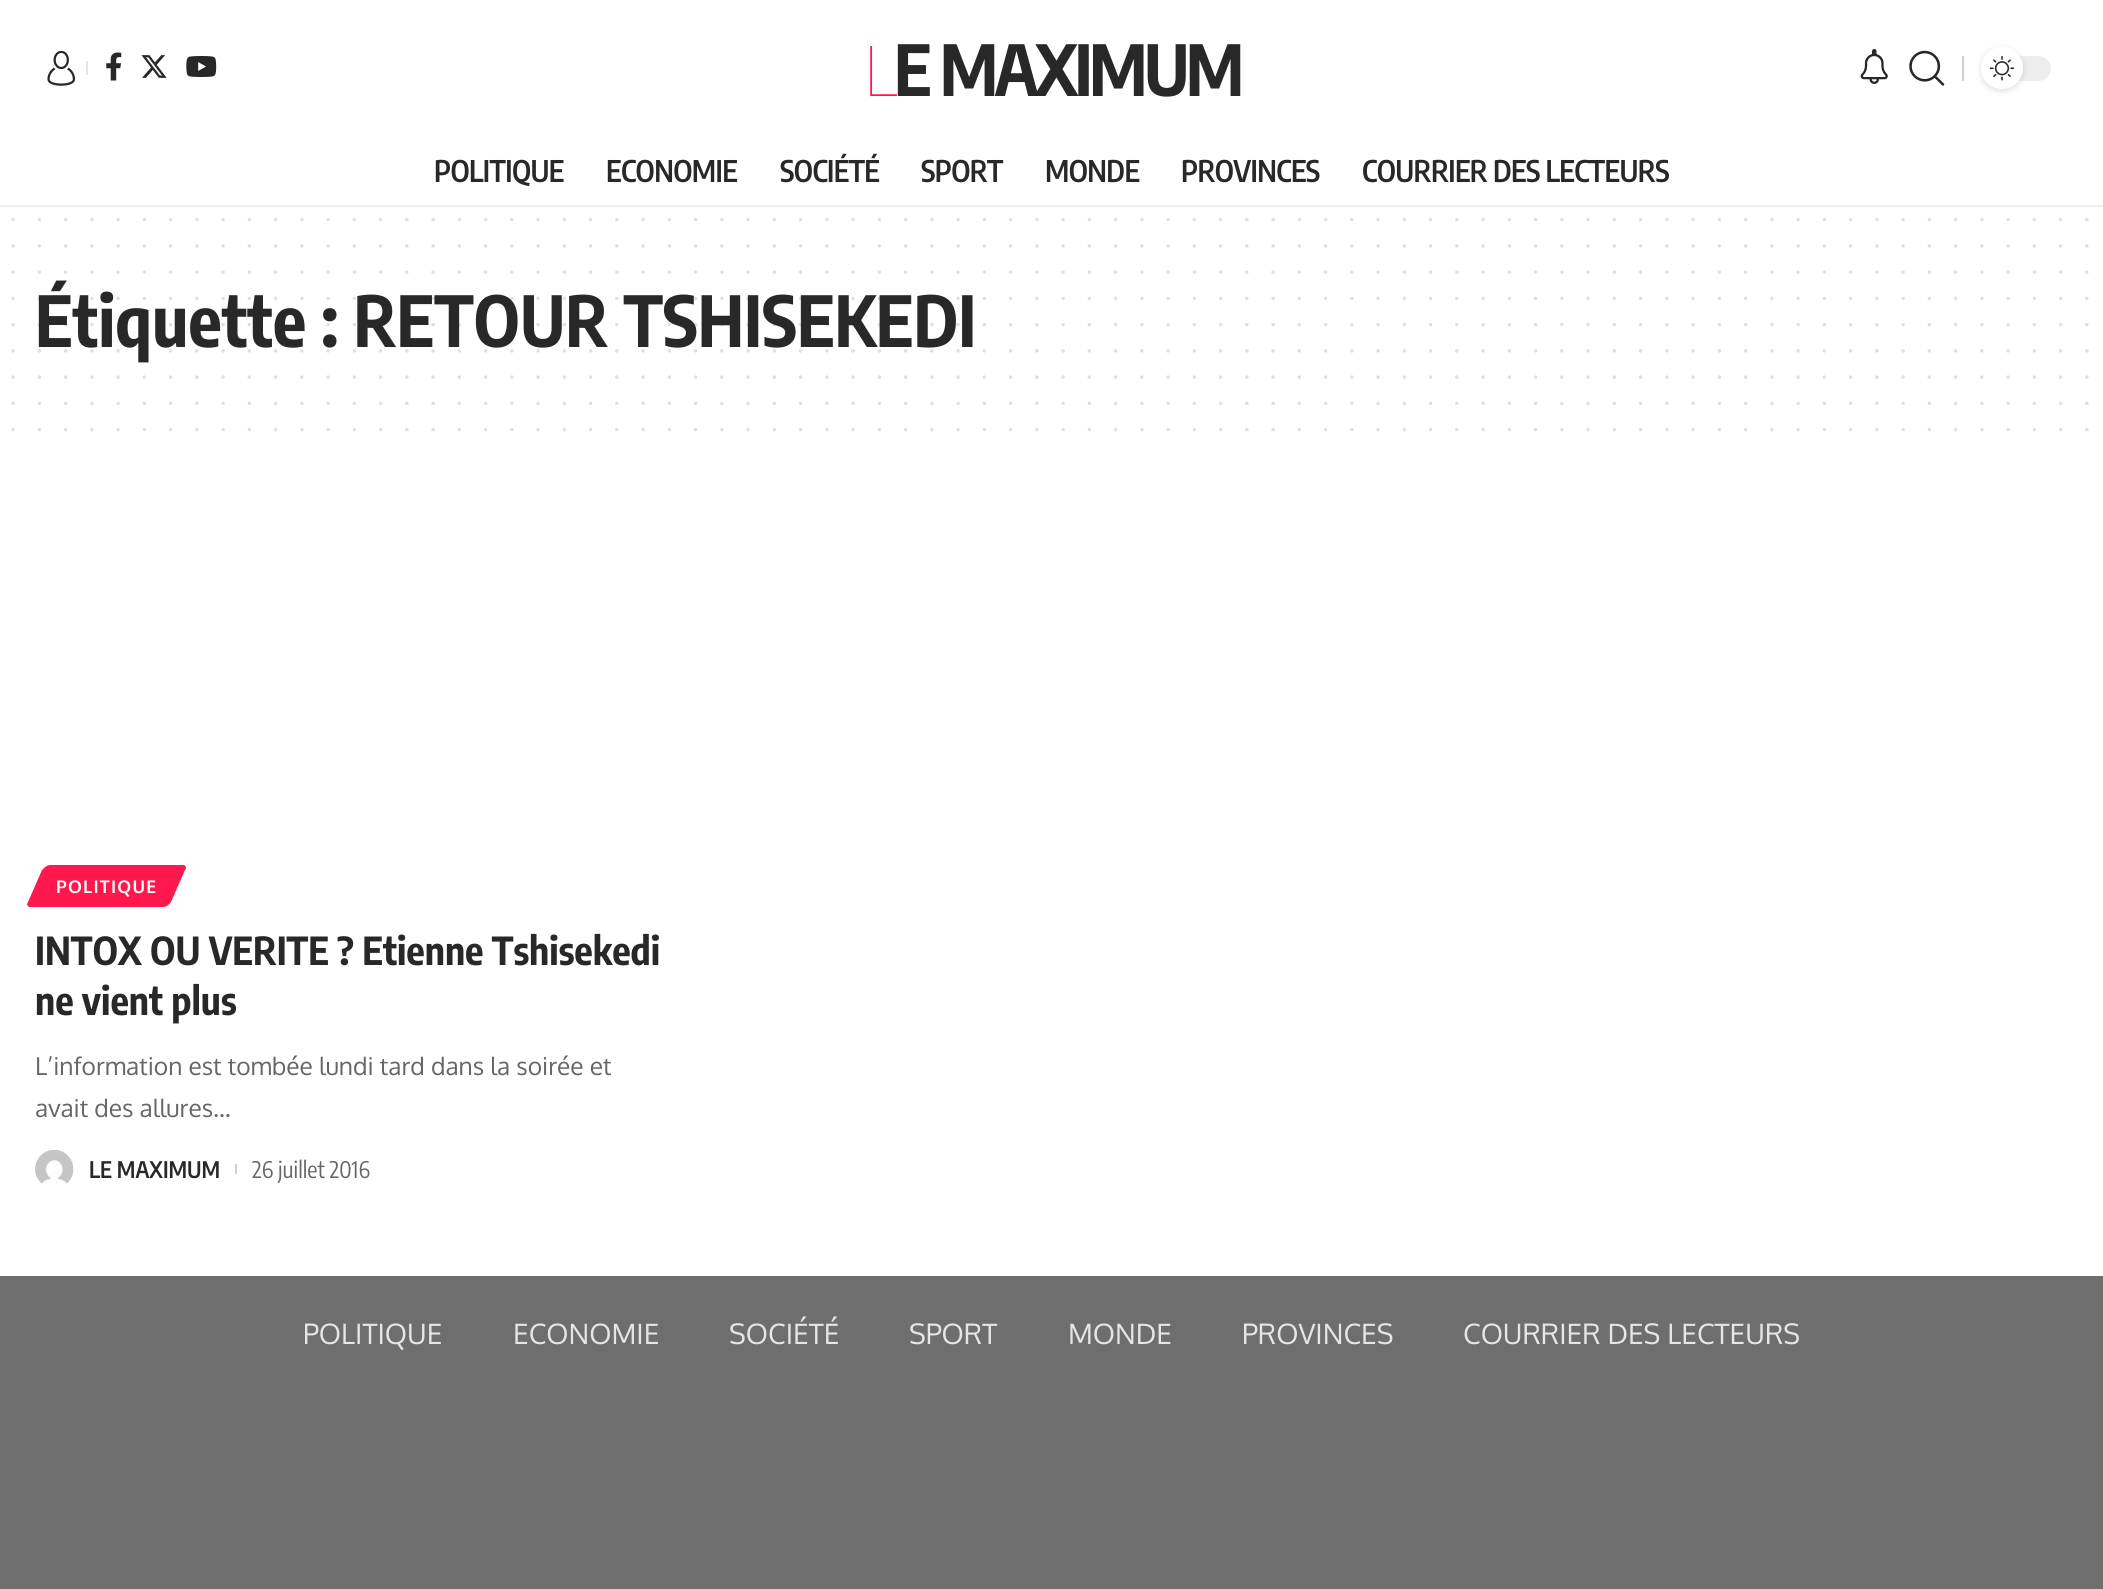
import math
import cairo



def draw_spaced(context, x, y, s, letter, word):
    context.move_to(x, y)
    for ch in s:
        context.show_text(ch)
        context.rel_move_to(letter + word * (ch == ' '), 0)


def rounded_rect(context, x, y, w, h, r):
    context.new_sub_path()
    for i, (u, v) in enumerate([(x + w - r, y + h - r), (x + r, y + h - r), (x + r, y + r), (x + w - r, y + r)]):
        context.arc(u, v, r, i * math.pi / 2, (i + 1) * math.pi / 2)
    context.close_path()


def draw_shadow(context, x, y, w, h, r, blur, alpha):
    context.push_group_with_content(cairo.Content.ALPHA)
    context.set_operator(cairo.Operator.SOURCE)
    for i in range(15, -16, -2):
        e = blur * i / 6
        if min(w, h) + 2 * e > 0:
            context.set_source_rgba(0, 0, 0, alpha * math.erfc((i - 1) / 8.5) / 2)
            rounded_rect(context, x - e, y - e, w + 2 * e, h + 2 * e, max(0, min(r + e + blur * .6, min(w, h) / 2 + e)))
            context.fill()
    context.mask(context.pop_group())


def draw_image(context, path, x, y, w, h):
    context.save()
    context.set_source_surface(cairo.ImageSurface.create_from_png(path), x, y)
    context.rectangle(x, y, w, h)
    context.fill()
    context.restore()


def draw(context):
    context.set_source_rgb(1, 1, 1)
    context.paint()
    draw_image(context, "images/1.png", 47, 51, 29, 35)
    context.set_source_rgb(228 / 255, 228 / 255, 228 / 255)
    context.rectangle(86, 61, 2, 14)
    context.fill()
    draw_image(context, "images/2.png", 106, 52, 16, 29)
    draw_image(context, "images/3.png", 141, 55, 26, 23)
    draw_image(context, "images/4.png", 186, 56, 31, 21)
    draw_image(context, "images/5.png", 1860, 49, 28, 35)
    draw_image(context, "images/6.png", 1909, 50, 36, 36)
    context.set_source_rgb(207 / 255, 207 / 255, 207 / 255)
    context.rectangle(1962, 56, 2, 25)
    context.fill()
    context.set_source_rgb(237 / 255, 237 / 255, 237 / 255)
    rounded_rect(context, 1981, 56, 70, 25, 12.5)
    context.fill()
    context.set_source_rgb(0, 0, 0)
    draw_shadow(context, 1981, 49, 42, 42, 21, 3.5, 0.12)
    context.set_source_rgb(1, 1, 1)
    context.arc(2002, 68, 21, 0, 2 * math.pi)
    context.fill()
    draw_image(context, "images/7.png", 1990, 56, 24, 25)
    context.set_source_rgb(237 / 255, 237 / 255, 237 / 255)
    context.rectangle(0, 205, 2103, 2)
    context.fill()
    context.new_path()
    context.move_to(13.1, 219.6)
    context.line_to(2087.2, 219.6)
    context.set_source_rgb(223 / 255, 223 / 255, 223 / 255)
    context.set_line_width(3.5)
    context.set_line_cap(cairo.LineCap.ROUND)
    context.set_dash([0, 26.25])
    context.stroke()
    context.new_path()
    context.move_to(13.1, 245.9)
    context.line_to(2087.2, 245.9)
    context.stroke()
    context.new_path()
    context.move_to(13.1, 272.1)
    context.line_to(2087.2, 272.1)
    context.stroke()
    context.new_path()
    context.move_to(13.1, 377.1)
    context.line_to(2087.2, 377.1)
    context.stroke()
    context.new_path()
    context.move_to(13.1, 403.4)
    context.line_to(2087.2, 403.4)
    context.stroke()
    context.new_path()
    context.move_to(13.1, 429.6)
    context.line_to(2087.2, 429.6)
    context.stroke()
    context.set_source_rgb(1, 24 / 255, 78 / 255)
    context.new_path()
    context.move_to(50, 865)
    context.line_to(183, 865)
    context.curve_to(186, 865, 187, 868, 185, 870)
    context.line_to(171, 902)
    context.curve_to(169, 905, 166, 907, 163, 907)
    context.line_to(30, 907)
    context.curve_to(28, 907, 26, 905, 28, 902)
    context.line_to(42, 870)
    context.curve_to(44, 868, 47, 865, 50, 865)
    context.close_path()
    context.fill()
    draw_image(context, "images/8.png", 35, 1150, 39, 34)
    context.set_source_rgb(209 / 255, 209 / 255, 209 / 255)
    context.rectangle(235, 1164, 2, 10)
    context.fill()
    context.set_source_rgb(110 / 255, 110 / 255, 110 / 255)
    context.rectangle(0, 1276, 2103, 313)
    context.fill()
    context.select_font_face("Noto Sans Thin")
    context.set_font_size(70)
    context.set_source_rgb(1, 24 / 255, 78 / 255)
    draw_spaced(context, 863, 96, "L", -3.5, 0)
    context.select_font_face("Encode Sans Condensed", cairo.FontSlant.NORMAL, cairo.FontWeight.BOLD)
    context.set_source_rgb(40 / 255, 40 / 255, 40 / 255)
    draw_spaced(context, 894, 96, "E MAXIMUM", -3.5, 0)
    context.select_font_face("Encode Sans Condensed SemiBold")
    context.set_font_size(29.75)
    draw_spaced(context, 434, 182, "POLITIQUE", -0.6, 0)
    draw_spaced(context, 606, 182, "ECONOMIE", -0.6, 0)
    draw_spaced(context, 780, 182, "SOCIÉTÉ", -0.6, 0)
    draw_spaced(context, 921, 182, "SPORT", -0.6, 0)
    draw_spaced(context, 1045, 182, "MONDE", -0.6, 0)
    draw_spaced(context, 1181, 182, "PROVINCES", -0.6, 0)
    draw_spaced(context, 1362, 182, "COURRIER DES LECTEURS", -0.6, 0)
    context.select_font_face("Encode Sans Condensed", cairo.FontSlant.NORMAL, cairo.FontWeight.BOLD)
    context.set_font_size(70)
    context.move_to(35, 347)
    context.show_text("Étiquette : RETOUR TSHISEKEDI")
    context.new_path()
    context.move_to(13.1, 350.9)
    context.line_to(2087.2, 350.9)
    context.set_source_rgba(40 / 255, 40 / 255, 40 / 255, 0.15)
    context.stroke()
    context.new_path()
    context.move_to(13.1, 324.6)
    context.line_to(2087.2, 324.6)
    context.stroke()
    context.new_path()
    context.move_to(13.1, 298.4)
    context.line_to(2087.2, 298.4)
    context.stroke()
    context.select_font_face("Oxygen", cairo.FontSlant.NORMAL, cairo.FontWeight.BOLD)
    context.set_font_size(17.5)
    context.set_source_rgb(1, 1, 1)
    draw_spaced(context, 56, 893, "POLITIQUE", 1.25, 0)
    context.select_font_face("Encode Sans Condensed", cairo.FontSlant.NORMAL, cairo.FontWeight.BOLD)
    context.set_font_size(38.5)
    context.set_source_rgb(40 / 255, 40 / 255, 40 / 255)
    context.move_to(35, 965)
    context.show_text("INTOX OU VERITE ? Etienne Tshisekedi")
    context.move_to(35, 1015)
    context.show_text("ne vient plus")
    context.select_font_face("Oxygen")
    context.set_font_size(24.5)
    context.set_source_rgb(102 / 255, 102 / 255, 102 / 255)
    context.move_to(35, 1075)
    context.show_text("L’information est tombée lundi tard dans la soirée et")
    context.move_to(35, 1117)
    context.show_text("avait des allures…")
    context.select_font_face("Encode Sans Condensed SemiBold")
    context.set_font_size(22.75)
    context.set_source_rgb(40 / 255, 40 / 255, 40 / 255)
    context.move_to(89, 1178)
    context.show_text("LE MAXIMUM")
    context.select_font_face("Encode Sans Condensed")
    context.set_source_rgb(102 / 255, 102 / 255, 102 / 255)
    context.move_to(252, 1178)
    context.show_text("26 juillet 2016")
    context.select_font_face("Oxygen")
    context.set_font_size(28)
    context.set_source_rgb(230 / 255, 230 / 255, 230 / 255)
    context.move_to(303, 1344)
    context.show_text("POLITIQUE")
    context.move_to(513, 1344)
    context.show_text("ECONOMIE")
    context.move_to(729, 1344)
    context.show_text("SOCIÉTÉ")
    context.move_to(909, 1344)
    context.show_text("SPORT")
    context.move_to(1068, 1344)
    context.show_text("MONDE")
    context.move_to(1242, 1344)
    context.show_text("PROVINCES")
    context.move_to(1463, 1344)
    context.show_text("COURRIER DES LECTEURS")


surface = cairo.ImageSurface(cairo.Format.RGB24, 2103, 1589)
context = cairo.Context(surface)
options = cairo.FontOptions()
options.set_hint_metrics(cairo.HintMetrics.OFF)
options.set_hint_style(cairo.HintStyle.NONE)
context.set_font_options(options)
context.set_miter_limit(4)
draw(context)
surface.write_to_png("out.png")
